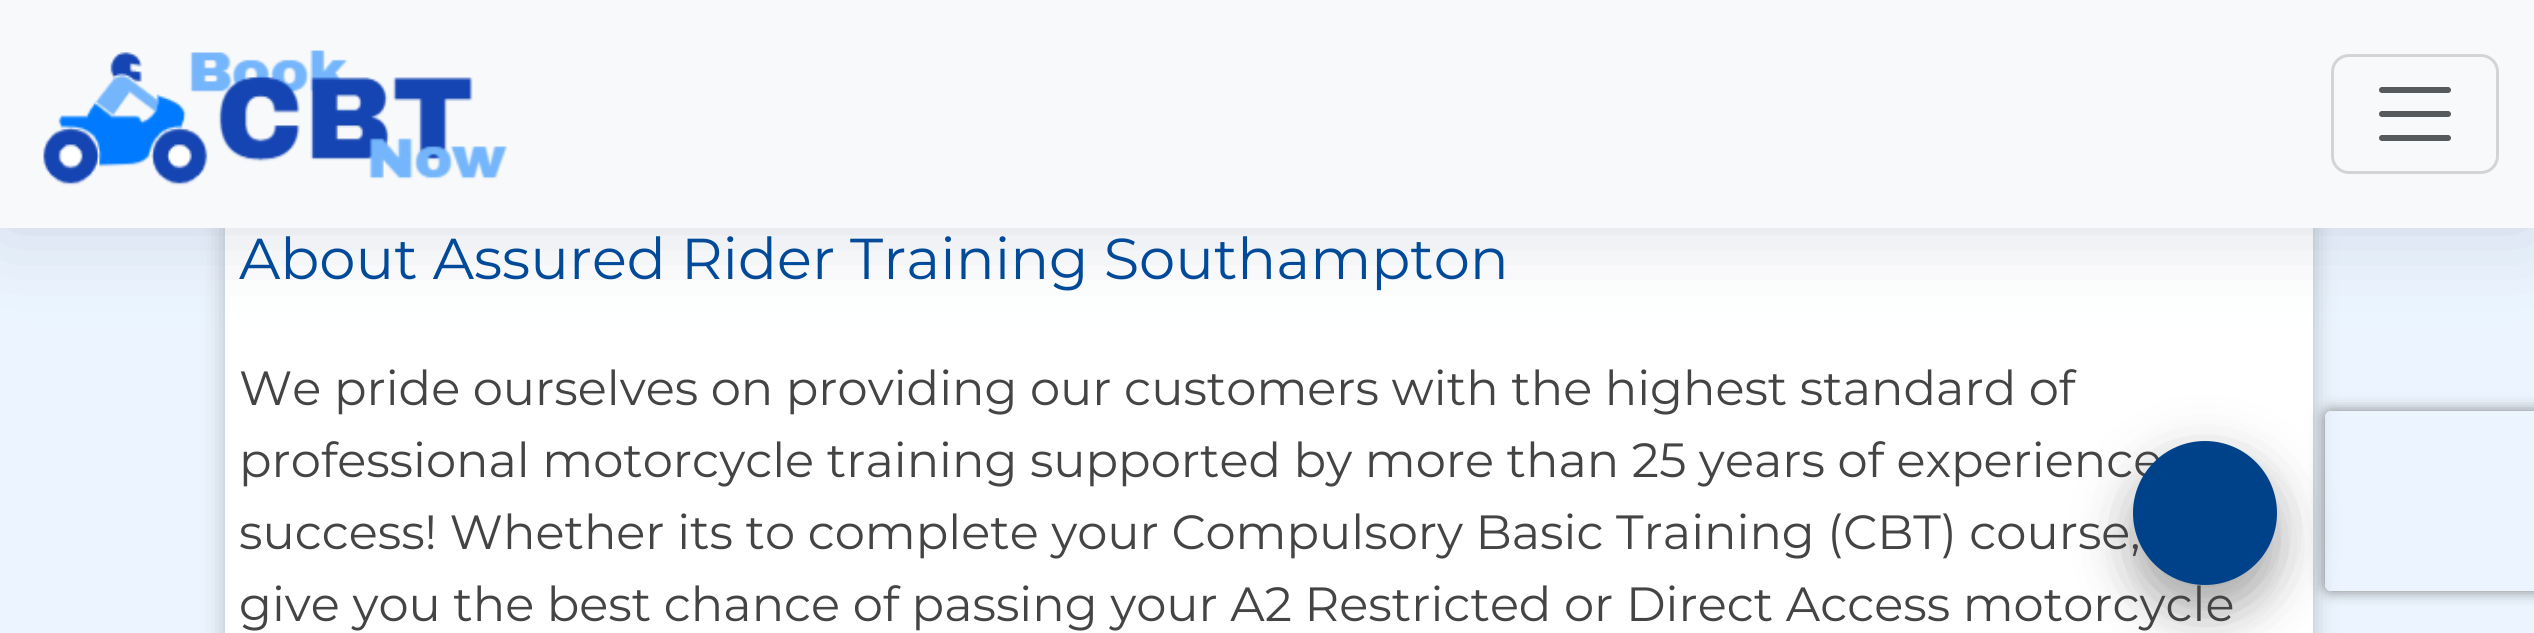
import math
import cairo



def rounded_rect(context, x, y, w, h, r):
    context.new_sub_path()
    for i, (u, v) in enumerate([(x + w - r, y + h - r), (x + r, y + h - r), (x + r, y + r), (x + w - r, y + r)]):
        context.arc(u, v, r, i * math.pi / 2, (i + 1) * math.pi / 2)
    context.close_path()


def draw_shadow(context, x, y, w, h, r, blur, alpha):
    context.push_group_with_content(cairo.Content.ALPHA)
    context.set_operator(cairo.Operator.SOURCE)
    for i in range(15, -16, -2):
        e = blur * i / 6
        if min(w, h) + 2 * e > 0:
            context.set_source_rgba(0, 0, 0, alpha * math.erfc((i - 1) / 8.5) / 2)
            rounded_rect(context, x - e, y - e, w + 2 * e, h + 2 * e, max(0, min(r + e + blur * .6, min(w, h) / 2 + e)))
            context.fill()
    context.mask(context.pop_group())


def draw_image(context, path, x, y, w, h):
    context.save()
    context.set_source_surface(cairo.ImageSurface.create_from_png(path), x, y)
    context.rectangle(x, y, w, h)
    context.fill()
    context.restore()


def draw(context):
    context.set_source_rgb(236 / 255, 245 / 255, 1)
    context.paint()
    context.set_source_rgb(0, 0, 0)
    draw_shadow(context, 225, -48, 2088, 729, 12, 12, 0.24)
    context.set_source_rgb(1, 1, 1)
    context.rectangle(225, 228, 2088, 405)
    context.fill()
    context.set_source_rgb(127 / 255, 137 / 255, 161 / 255)
    draw_shadow(context, 0, 0, 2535, 228, 0, 45, 0.3)
    context.set_source_rgb(248 / 255, 249 / 255, 250 / 255)
    context.rectangle(0, 0, 2534, 228)
    context.fill()
    draw_image(context, "images/1.png", 43, 50, 464, 136)
    rounded_rect(context, 2332.5, 55.5, 165, 117, 16.5)
    context.set_source_rgb(211 / 255, 212 / 255, 213 / 255)
    context.set_line_width(3)
    context.stroke()
    context.new_path()
    context.move_to(2382, 90)
    context.line_to(2448, 90)
    context.move_to(2382, 114)
    context.line_to(2448, 114)
    context.move_to(2382, 138)
    context.line_to(2448, 138)
    context.set_source_rgb(87 / 255, 90 / 255, 93 / 255)
    context.set_line_width(6)
    context.set_line_cap(cairo.LineCap.ROUND)
    context.stroke()
    context.set_source_rgb(0, 0, 0)
    draw_shadow(context, 2133, 459, 144, 144, 72, 30, 0.19)
    draw_shadow(context, 2133, 471, 144, 144, 72, 24, 0.2)
    context.save()
    context.set_fill_rule(cairo.FillRule.EVEN_ODD)
    context.new_path()
    context.move_to(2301, 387)
    context.line_to(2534, 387)
    context.line_to(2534, 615)
    context.line_to(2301, 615)
    context.close_path()
    context.move_to(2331, 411)
    context.line_to(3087, 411)
    context.curve_to(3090.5, 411, 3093, 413.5, 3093, 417)
    context.line_to(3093, 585)
    context.curve_to(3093, 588.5, 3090.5, 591, 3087, 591)
    context.line_to(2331, 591)
    context.curve_to(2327.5, 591, 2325, 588.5, 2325, 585)
    context.line_to(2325, 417)
    context.curve_to(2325, 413.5, 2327.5, 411, 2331, 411)
    context.close_path()
    context.clip()
    context.set_source_rgb(128 / 255, 128 / 255, 128 / 255)
    draw_shadow(context, 2325, 411, 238, 180, 6, 7.5, 1)
    context.restore()
    context.select_font_face("Montserrat")
    context.set_font_size(57.6)
    context.set_source_rgb(0, 74 / 255, 153 / 255)
    context.move_to(239, 279)
    context.show_text("About Assured Rider Training Southampton")
    context.set_font_size(48)
    context.set_source_rgb(68 / 255, 68 / 255, 68 / 255)
    context.move_to(239, 405)
    context.show_text("We pride ourselves on providing our customers with the highest standard of")
    context.move_to(239, 477)
    context.show_text("professional motorcycle training supported by more than 25 years of experience")
    context.move_to(239, 549)
    context.show_text("success! Whether its to complete your Compulsory Basic Training (CBT) course,")
    context.move_to(239, 621)
    context.show_text("give you the best chance of passing your A2 Restricted or Direct Access motorcycle")
    context.set_source_rgb(0, 66 / 255, 138 / 255)
    context.new_path()
    context.arc(2205, 513, 72, 0, 2 * math.pi)
    context.fill()


surface = cairo.ImageSurface(cairo.Format.RGB24, 2534, 633)
context = cairo.Context(surface)
options = cairo.FontOptions()
options.set_hint_metrics(cairo.HintMetrics.OFF)
options.set_hint_style(cairo.HintStyle.NONE)
context.set_font_options(options)
context.set_miter_limit(4)
draw(context)
surface.write_to_png("out.png")
